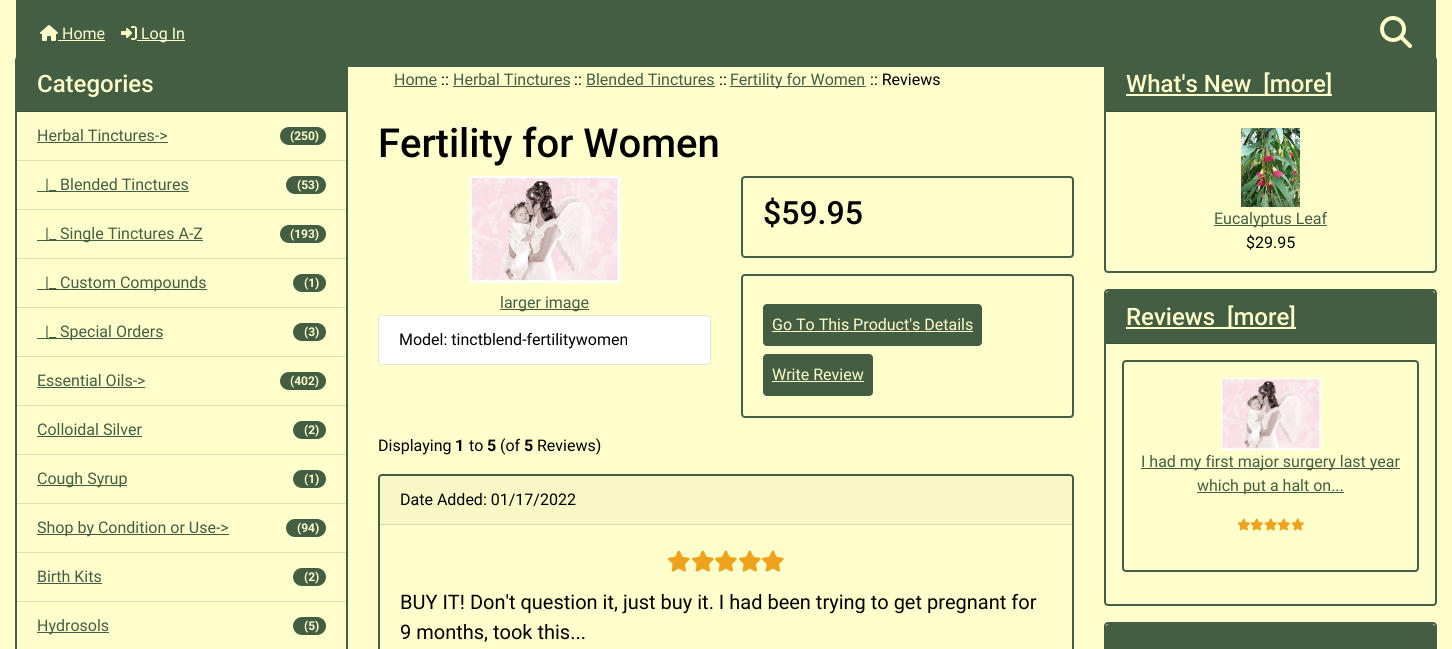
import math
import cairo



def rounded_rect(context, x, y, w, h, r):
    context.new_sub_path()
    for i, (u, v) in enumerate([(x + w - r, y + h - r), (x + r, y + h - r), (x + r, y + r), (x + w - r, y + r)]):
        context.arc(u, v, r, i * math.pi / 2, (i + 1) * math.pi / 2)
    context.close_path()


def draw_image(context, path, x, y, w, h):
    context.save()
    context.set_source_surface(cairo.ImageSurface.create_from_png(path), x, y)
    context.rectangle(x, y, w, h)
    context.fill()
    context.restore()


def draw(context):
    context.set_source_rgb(1, 1, 204 / 255)
    context.paint()
    rounded_rect(context, 16, 57, 331, 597, 3)
    context.set_source_rgb(67 / 255, 94 / 255, 66 / 255)
    context.stroke()
    context.rectangle(17, 65, 329, 46)
    context.fill()
    rounded_rect(context, 1105, 57, 331, 215, 3)
    context.stroke()
    context.rectangle(1106, 65, 329, 46)
    context.fill()
    context.new_path()
    context.move_to(16, 0)
    context.line_to(1436, 0)
    context.line_to(1436, 63)
    context.curve_to(1436, 65, 1434, 67, 1432, 67)
    context.line_to(20, 67)
    context.curve_to(18, 67, 16, 65, 16, 63)
    context.close_path()
    context.fill()
    draw_image(context, "images/1.png", 40, 25, 18, 16)
    context.set_source_rgb(1, 1, 204 / 255)
    context.rectangle(58, 40, 47, 1)
    context.fill()
    draw_image(context, "images/2.png", 121, 26, 16, 14)
    context.rectangle(137, 40, 48, 1)
    context.fill()
    draw_image(context, "images/3.png", 1380, 16, 32, 32)
    context.set_source_rgb(59 / 255, 82 / 255, 58 / 255)
    context.rectangle(17, 111, 329, 1)
    context.fill()
    context.set_source_rgb(223 / 255, 223 / 255, 179 / 255)
    context.rectangle(17, 160, 329, 1)
    context.fill()
    context.set_source_rgb(67 / 255, 94 / 255, 66 / 255)
    context.rectangle(37, 142, 131, 1)
    context.fill()
    rounded_rect(context, 280, 127, 46, 18, 9)
    context.fill()
    context.set_source_rgb(223 / 255, 223 / 255, 179 / 255)
    context.rectangle(17, 209, 329, 1)
    context.fill()
    context.set_source_rgb(67 / 255, 94 / 255, 66 / 255)
    context.rectangle(37, 191, 152, 1)
    context.fill()
    rounded_rect(context, 286, 176, 40, 18, 9)
    context.fill()
    context.set_source_rgb(223 / 255, 223 / 255, 179 / 255)
    context.rectangle(17, 258, 329, 1)
    context.fill()
    context.set_source_rgb(67 / 255, 94 / 255, 66 / 255)
    context.rectangle(37, 240, 166, 1)
    context.fill()
    rounded_rect(context, 280, 225, 46, 18, 9)
    context.fill()
    context.set_source_rgb(223 / 255, 223 / 255, 179 / 255)
    context.rectangle(17, 307, 329, 1)
    context.fill()
    context.set_source_rgb(67 / 255, 94 / 255, 66 / 255)
    context.rectangle(37, 289, 170, 1)
    context.fill()
    rounded_rect(context, 293, 274, 33, 18, 9)
    context.fill()
    context.set_source_rgb(223 / 255, 223 / 255, 179 / 255)
    context.rectangle(17, 356, 329, 1)
    context.fill()
    context.set_source_rgb(67 / 255, 94 / 255, 66 / 255)
    context.rectangle(37, 338, 126, 1)
    context.fill()
    rounded_rect(context, 293, 323, 33, 18, 9)
    context.fill()
    context.set_source_rgb(223 / 255, 223 / 255, 179 / 255)
    context.rectangle(17, 405, 329, 1)
    context.fill()
    context.set_source_rgb(67 / 255, 94 / 255, 66 / 255)
    context.rectangle(37, 387, 108, 1)
    context.fill()
    rounded_rect(context, 280, 372, 46, 18, 9)
    context.fill()
    context.set_source_rgb(223 / 255, 223 / 255, 179 / 255)
    context.rectangle(17, 454, 329, 1)
    context.fill()
    context.set_source_rgb(67 / 255, 94 / 255, 66 / 255)
    context.rectangle(37, 436, 105, 1)
    context.fill()
    rounded_rect(context, 293, 421, 33, 18, 9)
    context.fill()
    context.set_source_rgb(223 / 255, 223 / 255, 179 / 255)
    context.rectangle(17, 503, 329, 1)
    context.fill()
    context.set_source_rgb(67 / 255, 94 / 255, 66 / 255)
    context.rectangle(37, 485, 90, 1)
    context.fill()
    rounded_rect(context, 293, 470, 33, 18, 9)
    context.fill()
    context.set_source_rgb(223 / 255, 223 / 255, 179 / 255)
    context.rectangle(17, 552, 329, 1)
    context.fill()
    context.set_source_rgb(67 / 255, 94 / 255, 66 / 255)
    context.rectangle(37, 534, 192, 1)
    context.fill()
    rounded_rect(context, 286, 519, 40, 18, 9)
    context.fill()
    context.set_source_rgb(223 / 255, 223 / 255, 179 / 255)
    context.rectangle(17, 601, 329, 1)
    context.fill()
    context.set_source_rgb(67 / 255, 94 / 255, 66 / 255)
    context.rectangle(37, 583, 65, 1)
    context.fill()
    rounded_rect(context, 293, 568, 33, 18, 9)
    context.fill()
    context.rectangle(37, 632, 72, 1)
    context.fill()
    rounded_rect(context, 293, 617, 33, 18, 9)
    context.fill()
    context.rectangle(394, 86, 43, 1)
    context.fill()
    context.rectangle(453, 86, 117, 1)
    context.fill()
    context.rectangle(586, 86, 129, 1)
    context.fill()
    context.rectangle(730, 86, 136, 1)
    context.fill()
    draw_image(context, "images/4.png", 470, 176, 150, 107)
    context.rectangle(500, 309, 89, 1)
    context.fill()
    context.set_source_rgb(1, 1, 1)
    rounded_rect(context, 378, 315, 333, 50, 4)
    context.fill()
    rounded_rect(context, 378.5, 315.5, 332, 49, 3.5)
    context.set_source_rgba(0, 0, 0, 0.12)
    context.set_line_width(1)
    context.stroke()
    rounded_rect(context, 742, 177, 331, 80, 3)
    context.set_source_rgb(67 / 255, 94 / 255, 66 / 255)
    context.set_line_width(2)
    context.stroke()
    rounded_rect(context, 742, 275, 331, 142, 3)
    context.stroke()
    rounded_rect(context, 763.5, 304.5, 218, 41, 3.5)
    context.fill_preserve()
    context.set_line_width(1)
    context.stroke()
    context.set_source_rgb(1, 1, 204 / 255)
    context.rectangle(772, 331, 201, 1)
    context.fill()
    context.set_source_rgb(67 / 255, 94 / 255, 66 / 255)
    rounded_rect(context, 763.5, 354.5, 109, 41, 3.5)
    context.fill_preserve()
    context.stroke()
    context.set_source_rgb(1, 1, 204 / 255)
    context.rectangle(772, 381, 92, 1)
    context.fill()
    rounded_rect(context, 379, 475, 694, 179, 3)
    context.set_source_rgb(67 / 255, 94 / 255, 66 / 255)
    context.set_line_width(2)
    context.stroke()
    context.set_source_rgba(0, 0, 0, 0.03)
    context.rectangle(380, 476, 692, 48)
    context.fill()
    context.set_source_rgb(216 / 255, 216 / 255, 173 / 255)
    context.rectangle(380, 524, 692, 1)
    context.fill()
    draw_image(context, "images/5.png", 668, 550, 22, 22)
    draw_image(context, "images/5.png", 692, 550, 22, 22)
    draw_image(context, "images/5.png", 715, 550, 22, 22)
    draw_image(context, "images/5.png", 739, 550, 22, 22)
    draw_image(context, "images/5.png", 762, 550, 22, 22)
    context.set_source_rgb(59 / 255, 82 / 255, 58 / 255)
    context.rectangle(1106, 111, 329, 1)
    context.fill()
    context.set_source_rgb(1, 1, 204 / 255)
    context.rectangle(1126, 94, 206, 2)
    context.fill()
    draw_image(context, "images/6.png", 1241, 128, 59, 79)
    context.set_source_rgb(67 / 255, 94 / 255, 66 / 255)
    context.rectangle(1214, 225, 113, 1)
    context.fill()
    rounded_rect(context, 1105, 290, 331, 315, 3)
    context.stroke()
    context.new_path()
    context.move_to(1109, 291)
    context.line_to(1432, 291)
    context.curve_to(1433.5, 291, 1435, 292.5, 1435, 294)
    context.line_to(1435, 344)
    context.line_to(1106, 344)
    context.line_to(1106, 294)
    context.curve_to(1106, 292.5, 1107.5, 291, 1109, 291)
    context.close_path()
    context.fill()
    context.set_source_rgb(59 / 255, 82 / 255, 58 / 255)
    context.rectangle(1106, 343, 329, 1)
    context.fill()
    context.set_source_rgb(1, 1, 204 / 255)
    context.rectangle(1126, 327, 170, 2)
    context.fill()
    rounded_rect(context, 1123, 361, 295, 210, 3)
    context.set_source_rgb(67 / 255, 94 / 255, 66 / 255)
    context.stroke()
    draw_image(context, "images/7.png", 1221, 378, 100, 72)
    context.rectangle(1141, 468, 259, 1)
    context.fill()
    context.rectangle(1197, 492, 147, 1)
    context.fill()
    draw_image(context, "images/8.png", 1237, 518, 13, 13)
    draw_image(context, "images/8.png", 1250, 518, 13, 13)
    draw_image(context, "images/8.png", 1264, 518, 13, 13)
    draw_image(context, "images/8.png", 1277, 518, 13, 13)
    draw_image(context, "images/8.png", 1291, 518, 13, 13)
    rounded_rect(context, 1105, 623, 331, 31, 3)
    context.stroke()
    context.new_path()
    context.move_to(1109, 624)
    context.line_to(1432, 624)
    context.curve_to(1433.5, 624, 1435, 625.5, 1435, 627)
    context.line_to(1435, 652)
    context.line_to(1106, 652)
    context.line_to(1106, 627)
    context.curve_to(1106, 625.5, 1107.5, 624, 1109, 624)
    context.close_path()
    context.fill()
    context.select_font_face("Roboto")
    context.set_font_size(16)
    context.set_source_rgb(1, 1, 204 / 255)
    context.move_to(62, 39)
    context.show_text("Home")
    context.move_to(141, 39)
    context.show_text("Log In")
    context.select_font_face("Roboto Medium")
    context.set_font_size(24)
    context.move_to(37, 92)
    context.show_text("Categories")
    context.select_font_face("Roboto")
    context.set_font_size(16)
    context.set_source_rgb(67 / 255, 94 / 255, 66 / 255)
    context.move_to(37, 141)
    context.show_text("Herbal Tinctures->")
    context.select_font_face("Roboto", cairo.FontSlant.NORMAL, cairo.FontWeight.BOLD)
    context.set_font_size(12)
    context.set_source_rgb(1, 1, 204 / 255)
    context.move_to(290, 140)
    context.show_text("(250)")
    context.select_font_face("Roboto")
    context.set_font_size(16)
    context.set_source_rgb(67 / 255, 94 / 255, 66 / 255)
    context.move_to(45, 190)
    context.show_text("|_ Blended Tinctures")
    context.select_font_face("Roboto", cairo.FontSlant.NORMAL, cairo.FontWeight.BOLD)
    context.set_font_size(12)
    context.set_source_rgb(1, 1, 204 / 255)
    context.move_to(297, 189)
    context.show_text("(53)")
    context.select_font_face("Roboto")
    context.set_font_size(16)
    context.set_source_rgb(67 / 255, 94 / 255, 66 / 255)
    context.move_to(45, 239)
    context.show_text("|_ Single Tinctures A-Z")
    context.select_font_face("Roboto", cairo.FontSlant.NORMAL, cairo.FontWeight.BOLD)
    context.set_font_size(12)
    context.set_source_rgb(1, 1, 204 / 255)
    context.move_to(290, 238)
    context.show_text("(193)")
    context.select_font_face("Roboto")
    context.set_font_size(16)
    context.set_source_rgb(67 / 255, 94 / 255, 66 / 255)
    context.move_to(45, 288)
    context.show_text("|_ Custom Compounds")
    context.select_font_face("Roboto", cairo.FontSlant.NORMAL, cairo.FontWeight.BOLD)
    context.set_font_size(12)
    context.set_source_rgb(1, 1, 204 / 255)
    context.move_to(304, 287)
    context.show_text("(1)")
    context.select_font_face("Roboto")
    context.set_font_size(16)
    context.set_source_rgb(67 / 255, 94 / 255, 66 / 255)
    context.move_to(45, 337)
    context.show_text("|_ Special Orders")
    context.select_font_face("Roboto", cairo.FontSlant.NORMAL, cairo.FontWeight.BOLD)
    context.set_font_size(12)
    context.set_source_rgb(1, 1, 204 / 255)
    context.move_to(304, 336)
    context.show_text("(3)")
    context.select_font_face("Roboto")
    context.set_font_size(16)
    context.set_source_rgb(67 / 255, 94 / 255, 66 / 255)
    context.move_to(37, 386)
    context.show_text("Essential Oils->")
    context.select_font_face("Roboto", cairo.FontSlant.NORMAL, cairo.FontWeight.BOLD)
    context.set_font_size(12)
    context.set_source_rgb(1, 1, 204 / 255)
    context.move_to(290, 385)
    context.show_text("(402)")
    context.select_font_face("Roboto")
    context.set_font_size(16)
    context.set_source_rgb(67 / 255, 94 / 255, 66 / 255)
    context.move_to(37, 435)
    context.show_text("Colloidal Silver")
    context.select_font_face("Roboto", cairo.FontSlant.NORMAL, cairo.FontWeight.BOLD)
    context.set_font_size(12)
    context.set_source_rgb(1, 1, 204 / 255)
    context.move_to(304, 434)
    context.show_text("(2)")
    context.select_font_face("Roboto")
    context.set_font_size(16)
    context.set_source_rgb(67 / 255, 94 / 255, 66 / 255)
    context.move_to(37, 484)
    context.show_text("Cough Syrup")
    context.select_font_face("Roboto", cairo.FontSlant.NORMAL, cairo.FontWeight.BOLD)
    context.set_font_size(12)
    context.set_source_rgb(1, 1, 204 / 255)
    context.move_to(304, 483)
    context.show_text("(1)")
    context.select_font_face("Roboto")
    context.set_font_size(16)
    context.set_source_rgb(67 / 255, 94 / 255, 66 / 255)
    context.move_to(37, 533)
    context.show_text("Shop by Condition or Use->")
    context.select_font_face("Roboto", cairo.FontSlant.NORMAL, cairo.FontWeight.BOLD)
    context.set_font_size(12)
    context.set_source_rgb(1, 1, 204 / 255)
    context.move_to(297, 532)
    context.show_text("(94)")
    context.select_font_face("Roboto")
    context.set_font_size(16)
    context.set_source_rgb(67 / 255, 94 / 255, 66 / 255)
    context.move_to(37, 582)
    context.show_text("Birth Kits")
    context.select_font_face("Roboto", cairo.FontSlant.NORMAL, cairo.FontWeight.BOLD)
    context.set_font_size(12)
    context.set_source_rgb(1, 1, 204 / 255)
    context.move_to(304, 581)
    context.show_text("(2)")
    context.select_font_face("Roboto")
    context.set_font_size(16)
    context.set_source_rgb(67 / 255, 94 / 255, 66 / 255)
    context.move_to(37, 631)
    context.show_text("Hydrosols")
    context.select_font_face("Roboto", cairo.FontSlant.NORMAL, cairo.FontWeight.BOLD)
    context.set_font_size(12)
    context.set_source_rgb(1, 1, 204 / 255)
    context.move_to(304, 630)
    context.show_text("(5)")
    context.select_font_face("Roboto")
    context.set_font_size(16)
    context.set_source_rgb(67 / 255, 94 / 255, 66 / 255)
    context.move_to(394, 85)
    context.show_text("Home")
    context.set_source_rgb(0, 0, 0)
    context.move_to(441, 85)
    context.show_text("::")
    context.set_source_rgb(67 / 255, 94 / 255, 66 / 255)
    context.move_to(453, 85)
    context.show_text("Herbal Tinctures")
    context.set_source_rgb(0, 0, 0)
    context.move_to(574, 85)
    context.show_text("::")
    context.set_source_rgb(67 / 255, 94 / 255, 66 / 255)
    context.move_to(586, 85)
    context.show_text("Blended Tinctures")
    context.set_source_rgb(0, 0, 0)
    context.move_to(719, 85)
    context.show_text("::")
    context.set_source_rgb(67 / 255, 94 / 255, 66 / 255)
    context.move_to(730, 85)
    context.show_text("Fertility for Women")
    context.set_source_rgb(0, 0, 0)
    context.move_to(870, 85)
    context.show_text(":: Reviews")
    context.select_font_face("Roboto Medium")
    context.set_font_size(40)
    context.move_to(378, 157)
    context.show_text("Fertility for Women")
    context.select_font_face("Roboto")
    context.set_font_size(16)
    context.set_source_rgb(67 / 255, 94 / 255, 66 / 255)
    context.move_to(500, 308)
    context.show_text("larger image")
    context.set_source_rgb(0, 0, 0)
    context.move_to(399, 345)
    context.show_text("Model: tinctblend-fertilitywomen")
    context.select_font_face("Roboto Medium")
    context.set_font_size(32)
    context.move_to(763, 224)
    context.show_text("$59.95")
    context.select_font_face("Roboto")
    context.set_font_size(16)
    context.set_source_rgb(1, 1, 204 / 255)
    context.move_to(772, 330)
    context.show_text("Go To This Product's Details")
    context.move_to(772, 380)
    context.show_text("Write Review")
    context.set_source_rgb(0, 0, 0)
    context.move_to(378, 451)
    context.show_text("Displaying")
    context.select_font_face("Roboto", cairo.FontSlant.NORMAL, cairo.FontWeight.BOLD)
    context.move_to(455, 451)
    context.show_text("1")
    context.select_font_face("Roboto")
    context.move_to(469, 451)
    context.show_text("to")
    context.select_font_face("Roboto", cairo.FontSlant.NORMAL, cairo.FontWeight.BOLD)
    context.move_to(487, 451)
    context.show_text("5")
    context.select_font_face("Roboto")
    context.move_to(500, 451)
    context.show_text("(of")
    context.select_font_face("Roboto", cairo.FontSlant.NORMAL, cairo.FontWeight.BOLD)
    context.move_to(524, 451)
    context.show_text("5")
    context.select_font_face("Roboto")
    context.move_to(537, 451)
    context.show_text("Reviews)")
    context.move_to(400, 505)
    context.show_text("Date Added: 01/17/2022")
    context.set_font_size(20)
    context.move_to(400, 609)
    context.show_text("BUY IT! Don't question it, just buy it. I had been trying to get pregnant for")
    context.move_to(400, 639)
    context.show_text("9 months, took this...")
    context.select_font_face("Roboto Medium")
    context.set_font_size(24)
    context.set_source_rgb(1, 1, 204 / 255)
    context.move_to(1126, 92)
    context.show_text("What's New  [more]")
    context.select_font_face("Roboto")
    context.set_font_size(16)
    context.set_source_rgb(67 / 255, 94 / 255, 66 / 255)
    context.move_to(1214, 224)
    context.show_text("Eucalyptus Leaf")
    context.set_source_rgb(0, 0, 0)
    context.move_to(1246, 248)
    context.show_text("$29.95")
    context.select_font_face("Roboto Medium")
    context.set_font_size(24)
    context.set_source_rgb(1, 1, 204 / 255)
    context.move_to(1126, 325)
    context.show_text("Reviews  [more]")
    context.select_font_face("Roboto")
    context.set_font_size(16)
    context.set_source_rgb(67 / 255, 94 / 255, 66 / 255)
    context.move_to(1141, 467)
    context.show_text("I had my first major surgery last year")
    context.move_to(1197, 491)
    context.show_text("which put a halt on...")


surface = cairo.ImageSurface(cairo.Format.RGB24, 1452, 649)
context = cairo.Context(surface)
options = cairo.FontOptions()
options.set_hint_metrics(cairo.HintMetrics.OFF)
options.set_hint_style(cairo.HintStyle.NONE)
context.set_font_options(options)
context.set_miter_limit(4)
draw(context)
surface.write_to_png("out.png")
